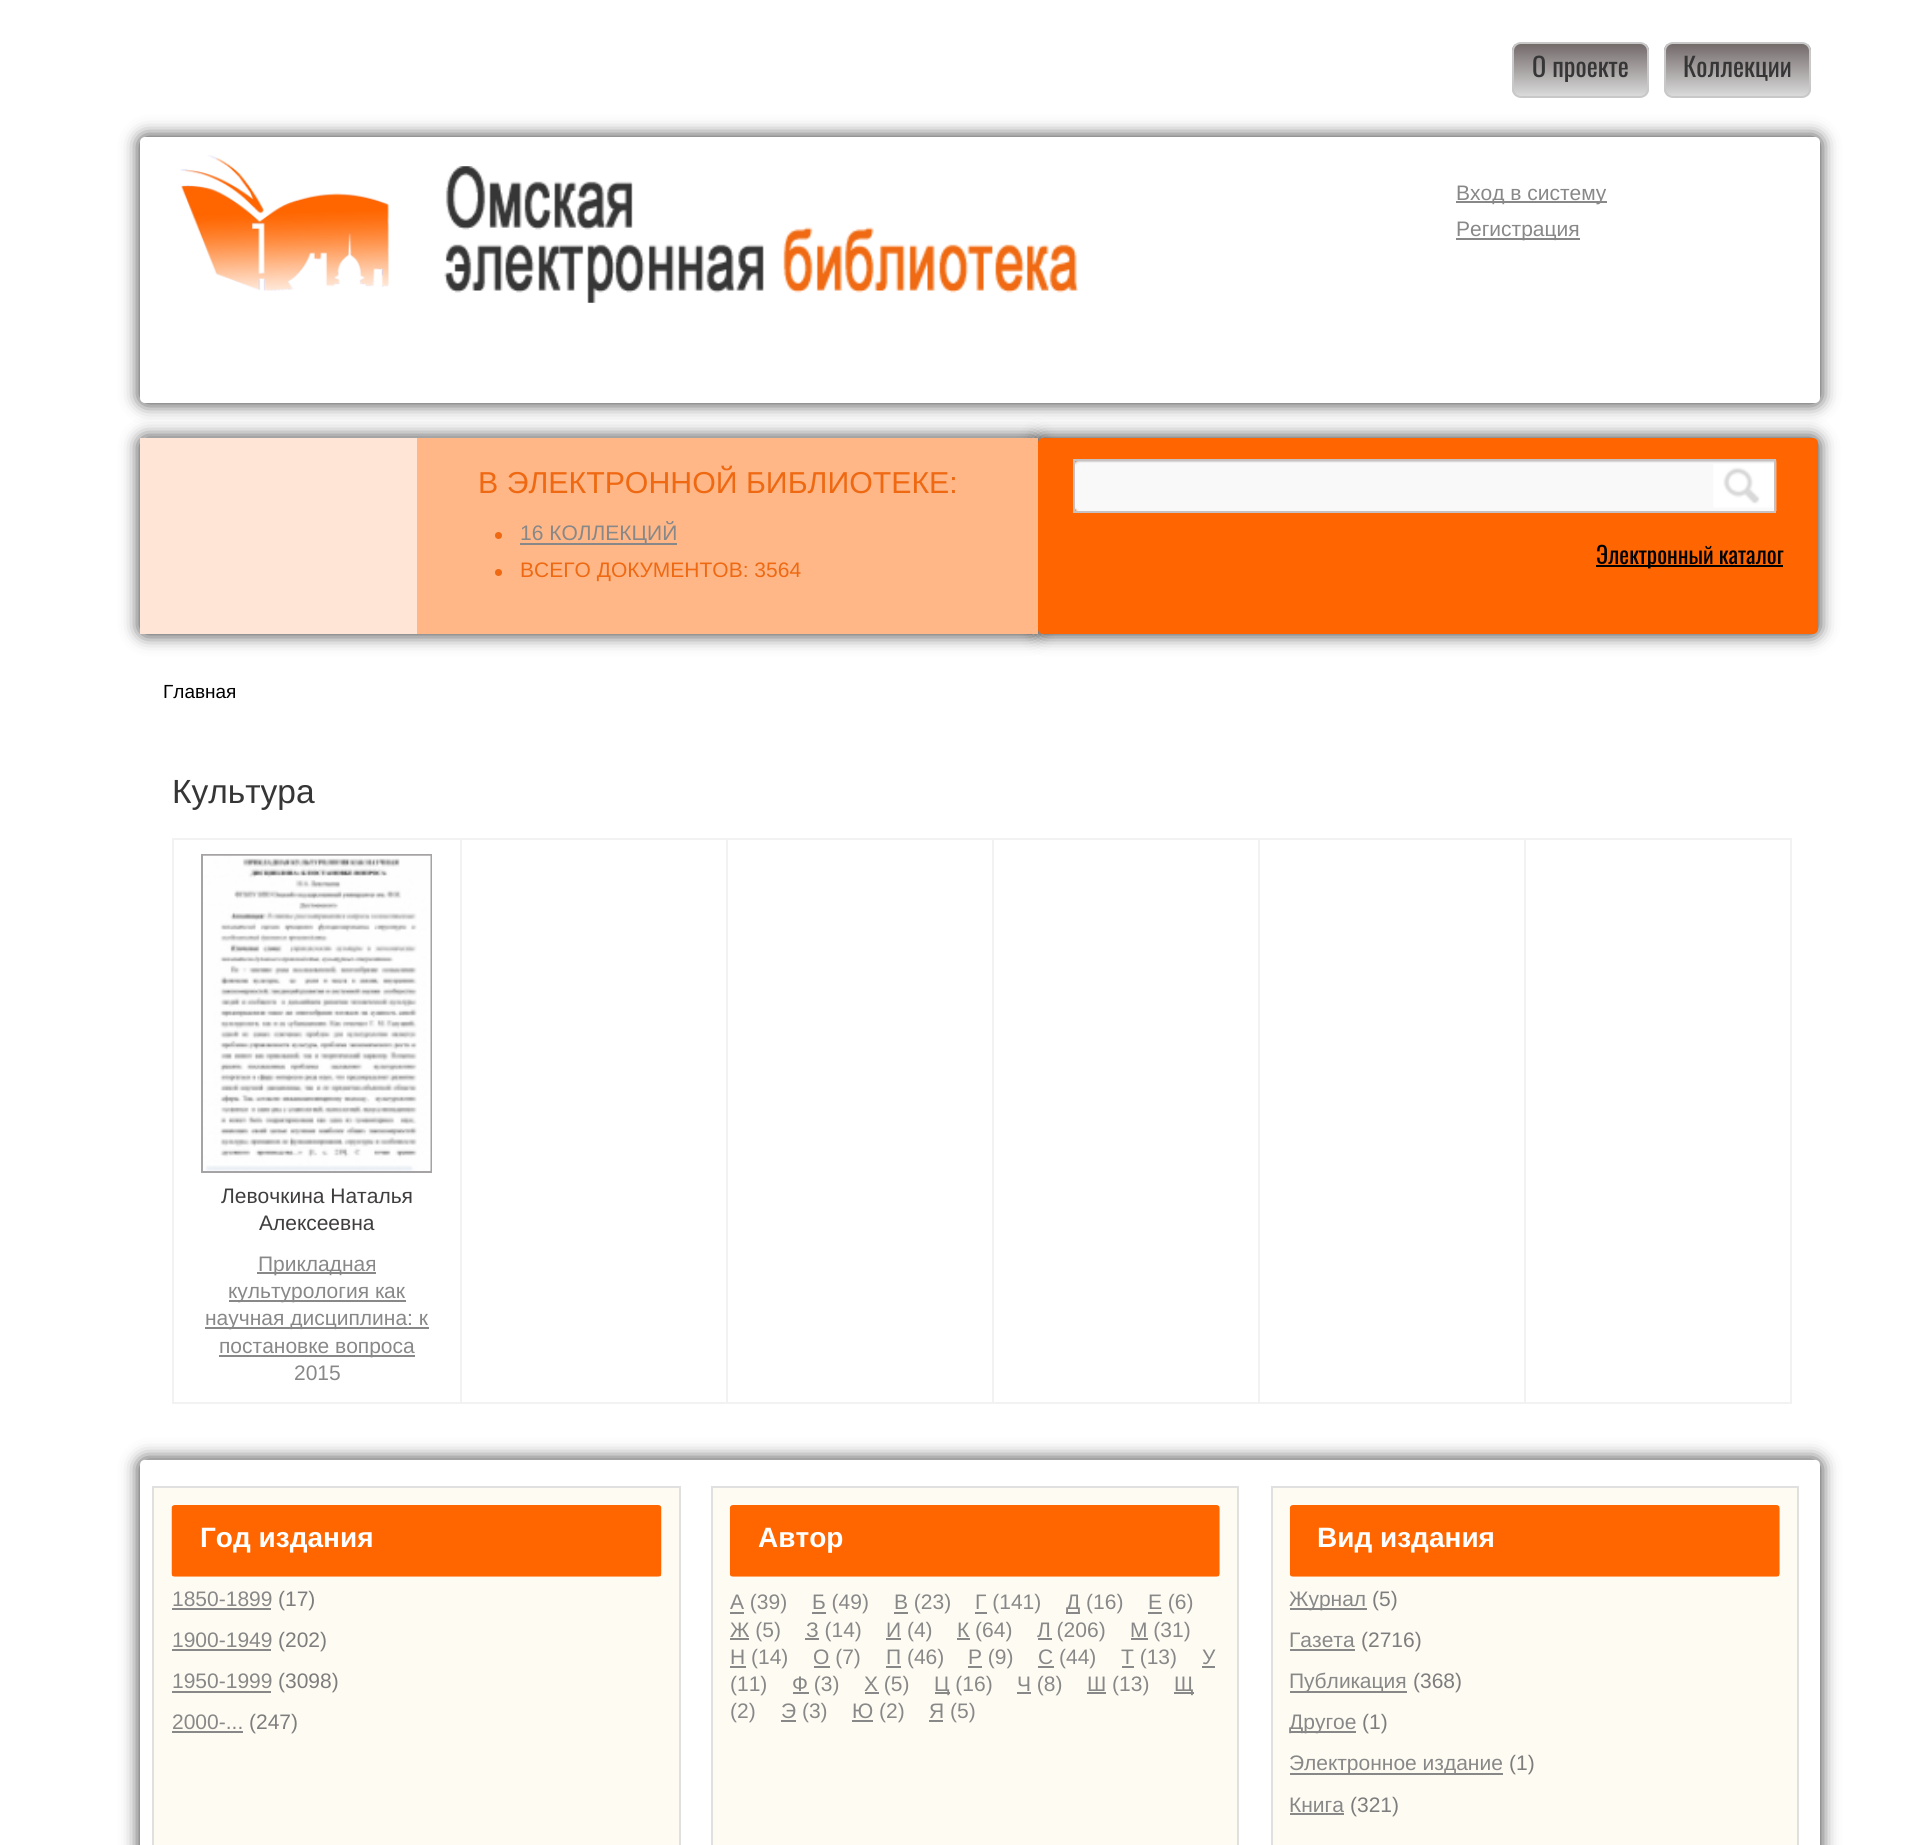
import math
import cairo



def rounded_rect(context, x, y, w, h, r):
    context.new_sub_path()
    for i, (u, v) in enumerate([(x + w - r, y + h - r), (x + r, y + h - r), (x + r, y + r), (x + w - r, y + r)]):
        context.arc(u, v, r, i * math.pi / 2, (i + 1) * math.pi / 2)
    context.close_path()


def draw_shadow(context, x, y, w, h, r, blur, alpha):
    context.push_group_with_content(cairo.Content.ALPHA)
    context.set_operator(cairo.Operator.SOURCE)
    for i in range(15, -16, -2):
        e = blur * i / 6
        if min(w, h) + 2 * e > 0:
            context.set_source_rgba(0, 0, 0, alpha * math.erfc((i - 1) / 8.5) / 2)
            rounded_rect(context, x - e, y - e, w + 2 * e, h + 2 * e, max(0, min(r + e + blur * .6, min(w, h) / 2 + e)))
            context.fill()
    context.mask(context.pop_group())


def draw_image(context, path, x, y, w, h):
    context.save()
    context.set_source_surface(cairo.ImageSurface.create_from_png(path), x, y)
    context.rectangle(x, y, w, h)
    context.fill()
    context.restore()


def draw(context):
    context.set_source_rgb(1, 1, 1)
    context.paint()
    context.save()
    rounded_rect(context, 1512, 42, 137, 56, 9)
    context.clip()
    gradient = cairo.LinearGradient(1580, 96, 1580, 44)
    gradient.add_color_stop_rgba(0, 218 / 255, 218 / 255, 218 / 255, 1)
    gradient.add_color_stop_rgba(1, 115 / 255, 106 / 255, 106 / 255, 1)
    context.set_source(gradient)
    context.rectangle(1512, 44, 137, 52)
    context.fill()
    context.restore()
    rounded_rect(context, 1513, 43, 135, 54, 8)
    context.set_source_rgb(200 / 255, 200 / 255, 200 / 255)
    context.stroke()
    context.save()
    rounded_rect(context, 1664, 42, 147, 56, 9)
    context.clip()
    gradient = cairo.LinearGradient(1738, 96, 1738, 44)
    gradient.add_color_stop_rgba(0, 218 / 255, 218 / 255, 218 / 255, 1)
    gradient.add_color_stop_rgba(1, 115 / 255, 106 / 255, 106 / 255, 1)
    context.set_source(gradient)
    context.rectangle(1664, 44, 147, 52)
    context.fill()
    context.restore()
    rounded_rect(context, 1665, 43, 145, 54, 8)
    context.stroke()
    context.set_source_rgb(0, 0, 0)
    draw_shadow(context, 140, 137, 1680, 266, 5, 9, 0.83)
    context.set_source_rgb(1, 1, 1)
    rounded_rect(context, 140, 137, 1680, 266, 5)
    context.fill()
    draw_image(context, "images/1.png", 180, 155, 209, 136)
    draw_image(context, "images/2.png", 444, 166, 634, 137)
    context.set_source_rgb(136 / 255, 136 / 255, 136 / 255)
    context.rectangle(1456, 201, 151, 2)
    context.fill()
    context.rectangle(1456, 238, 124, 2)
    context.fill()
    context.set_source_rgb(0, 0, 0)
    draw_shadow(context, 140, 438, 898, 196, 5, 9, 0.83)
    draw_image(context, "images/3.png", 144, 437, 890, 1)
    context.set_source_rgb(254 / 255, 229 / 255, 213 / 255)
    context.rectangle(140, 438, 277, 196)
    context.fill()
    context.set_source_rgb(0, 0, 0)
    draw_shadow(context, 1038, 438, 780, 196, 5, 9, 0.83)
    context.set_source_rgb(1, 183 / 255, 136 / 255)
    context.rectangle(417, 438, 621, 196)
    context.fill()
    context.set_source_rgb(239 / 255, 105 / 255, 18 / 255)
    context.arc(498.5, 535.5, 3.5, 0, 2 * math.pi)
    context.fill()
    context.set_source_rgb(136 / 255, 136 / 255, 136 / 255)
    context.rectangle(520, 543, 157, 2)
    context.fill()
    context.set_source_rgb(239 / 255, 105 / 255, 18 / 255)
    context.arc(498.5, 572.5, 3.5, 0, 2 * math.pi)
    context.fill()
    context.set_source_rgb(1, 101 / 255, 0)
    rounded_rect(context, 1038, 438, 780, 196, 5)
    context.fill()
    draw_image(context, "images/4.png", 1075, 460, 702, 51)
    context.rectangle(1074, 460, 701, 52)
    context.set_source_rgb(199 / 255, 193 / 255, 193 / 255)
    context.stroke()
    context.set_source_rgb(0, 0, 0)
    context.rectangle(1596, 565, 187, 2)
    context.fill()
    context.set_source_rgb(243 / 255, 242 / 255, 243 / 255)
    context.rectangle(1524, 838, 268, 2)
    context.fill()
    context.rectangle(1790, 838, 2, 566)
    context.fill()
    context.rectangle(1524, 1402, 268, 2)
    context.fill()
    context.rectangle(1524, 838, 2, 566)
    context.fill()
    context.rectangle(1258, 838, 268, 2)
    context.fill()
    context.rectangle(1258, 1402, 268, 2)
    context.fill()
    context.rectangle(1258, 838, 2, 566)
    context.fill()
    context.rectangle(992, 838, 268, 2)
    context.fill()
    context.rectangle(992, 1402, 268, 2)
    context.fill()
    context.rectangle(992, 838, 2, 566)
    context.fill()
    context.rectangle(726, 838, 268, 2)
    context.fill()
    context.rectangle(726, 1402, 268, 2)
    context.fill()
    context.rectangle(726, 838, 2, 566)
    context.fill()
    context.rectangle(460, 838, 268, 2)
    context.fill()
    context.rectangle(460, 1402, 268, 2)
    context.fill()
    context.rectangle(460, 838, 2, 566)
    context.fill()
    context.rectangle(172, 838, 290, 2)
    context.fill()
    context.rectangle(172, 1402, 290, 2)
    context.fill()
    context.rectangle(172, 838, 2, 566)
    context.fill()
    context.rectangle(202, 855, 229, 317)
    context.set_source_rgb(165 / 255, 163 / 255, 163 / 255)
    context.stroke()
    draw_image(context, "images/5.png", 203, 855, 228, 316)
    context.set_source_rgb(136 / 255, 136 / 255, 136 / 255)
    context.rectangle(257, 1272, 119, 2)
    context.fill()
    context.rectangle(229, 1300, 177, 2)
    context.fill()
    context.rectangle(205, 1327, 224, 2)
    context.fill()
    context.rectangle(219, 1355, 196, 2)
    context.fill()
    context.set_source_rgb(0, 0, 0)
    draw_shadow(context, 140, 1460, 1680, 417, 5, 9, 0.83)
    context.set_source_rgb(1, 1, 1)
    rounded_rect(context, 140, 1460, 1680, 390, 5)
    context.fill()
    draw_image(context, "images/6.png", 140, 1459, 1680, 4)
    context.set_source_rgb(254 / 255, 251 / 255, 243 / 255)
    context.rectangle(153, 1487, 527, 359)
    context.fill_preserve()
    context.set_source_rgb(224 / 255, 224 / 255, 224 / 255)
    context.stroke()
    draw_image(context, "images/7.png", 171, 1505, 491, 72)
    context.set_source_rgb(136 / 255, 136 / 255, 136 / 255)
    context.rectangle(172, 1608, 99, 2)
    context.fill()
    context.rectangle(172, 1649, 99, 2)
    context.fill()
    context.rectangle(172, 1691, 99, 2)
    context.fill()
    context.rectangle(172, 1731, 71, 2)
    context.fill()
    context.set_source_rgb(254 / 255, 251 / 255, 243 / 255)
    context.rectangle(712, 1487, 526, 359)
    context.fill_preserve()
    context.set_source_rgb(224 / 255, 224 / 255, 224 / 255)
    context.stroke()
    draw_image(context, "images/8.png", 729, 1505, 491, 72)
    context.set_source_rgb(136 / 255, 136 / 255, 136 / 255)
    context.rectangle(730, 1612, 14, 2)
    context.fill()
    context.rectangle(812, 1612, 14, 2)
    context.fill()
    context.rectangle(894, 1612, 14, 2)
    context.fill()
    context.rectangle(975, 1612, 12, 2)
    context.fill()
    context.rectangle(1066, 1612, 14, 2)
    context.fill()
    context.rectangle(1148, 1612, 14, 2)
    context.fill()
    context.rectangle(730, 1638, 19, 2)
    context.fill()
    context.rectangle(805, 1638, 14, 2)
    context.fill()
    context.rectangle(886, 1638, 15, 2)
    context.fill()
    context.rectangle(957, 1638, 13, 2)
    context.fill()
    context.rectangle(1038, 1638, 14, 2)
    context.fill()
    context.rectangle(1131, 1638, 17, 2)
    context.fill()
    context.rectangle(730, 1666, 16, 2)
    context.fill()
    context.rectangle(814, 1666, 16, 2)
    context.fill()
    context.rectangle(886, 1666, 15, 2)
    context.fill()
    context.rectangle(968, 1666, 14, 2)
    context.fill()
    context.rectangle(1038, 1666, 16, 2)
    context.fill()
    context.rectangle(1122, 1666, 12, 2)
    context.fill()
    context.rectangle(1202, 1666, 13, 2)
    context.fill()
    context.rectangle(793, 1692, 16, 2)
    context.fill()
    context.rectangle(865, 1692, 14, 2)
    context.fill()
    context.rectangle(935, 1692, 15, 2)
    context.fill()
    context.rectangle(1017, 1692, 14, 2)
    context.fill()
    context.rectangle(1087, 1692, 19, 2)
    context.fill()
    context.rectangle(1174, 1692, 20, 2)
    context.fill()
    context.rectangle(781, 1720, 15, 2)
    context.fill()
    context.rectangle(852, 1720, 21, 2)
    context.fill()
    context.rectangle(929, 1720, 14, 2)
    context.fill()
    context.set_source_rgb(254 / 255, 251 / 255, 243 / 255)
    context.rectangle(1272, 1487, 526, 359)
    context.fill_preserve()
    context.set_source_rgb(224 / 255, 224 / 255, 224 / 255)
    context.stroke()
    draw_image(context, "images/9.png", 1289, 1505, 491, 72)
    context.set_source_rgb(136 / 255, 136 / 255, 136 / 255)
    context.rectangle(1290, 1608, 77, 2)
    context.fill()
    context.rectangle(1290, 1649, 65, 2)
    context.fill()
    context.rectangle(1290, 1691, 117, 2)
    context.fill()
    context.rectangle(1290, 1731, 66, 2)
    context.fill()
    context.rectangle(1290, 1773, 213, 2)
    context.fill()
    context.rectangle(1290, 1813, 54, 2)
    context.fill()
    context.select_font_face("Oswald")
    context.set_font_size(26.25)
    context.set_source_rgb(54 / 255, 54 / 255, 54 / 255)
    context.move_to(1532, 77)
    context.show_text("О проекте")
    context.move_to(1683, 77)
    context.show_text("Коллекции")
    context.select_font_face("Liberation Sans")
    context.set_font_size(21)
    context.set_source_rgb(136 / 255, 136 / 255, 136 / 255)
    context.move_to(1456, 200)
    context.show_text("Вход в систему")
    context.move_to(1456, 236)
    context.show_text("Регистрация")
    context.set_font_size(30.3)
    context.set_source_rgb(239 / 255, 105 / 255, 18 / 255)
    context.move_to(478, 493)
    context.show_text("В ЭЛЕКТРОННОЙ БИБЛИОТЕКЕ:")
    context.set_font_size(21)
    context.set_source_rgb(136 / 255, 136 / 255, 136 / 255)
    context.move_to(520, 540)
    context.show_text("16 КОЛЛЕКЦИЙ")
    context.set_source_rgb(239 / 255, 105 / 255, 18 / 255)
    context.move_to(520, 577)
    context.show_text("ВСЕГО ДОКУМЕНТОВ: 3564")
    context.select_font_face("Oswald")
    context.set_font_size(23.25)
    context.set_source_rgb(0, 0, 0)
    context.move_to(1596, 564)
    context.show_text("Электронный каталог")
    context.select_font_face("Liberation Sans")
    context.set_font_size(19)
    context.move_to(163, 698)
    context.show_text("Главная")
    context.set_font_size(33.5)
    context.set_source_rgb(54 / 255, 54 / 255, 54 / 255)
    context.move_to(172, 803)
    context.show_text("Культура")
    context.set_font_size(21)
    context.set_source_rgb(63 / 255, 61 / 255, 61 / 255)
    context.move_to(221, 1203)
    context.show_text("Левочкина Наталья")
    context.move_to(259, 1230)
    context.show_text("Алексеевна")
    context.set_source_rgb(136 / 255, 136 / 255, 136 / 255)
    context.move_to(258, 1271)
    context.show_text("Прикладная")
    context.move_to(228, 1298)
    context.show_text("культурология как")
    context.move_to(205, 1325)
    context.show_text("научная дисциплина: к")
    context.move_to(219, 1353)
    context.show_text("постановке вопроса")
    context.move_to(294, 1380)
    context.show_text("2015")
    context.select_font_face("Liberation Sans", cairo.FontSlant.NORMAL, cairo.FontWeight.BOLD)
    context.set_font_size(28)
    context.set_source_rgb(1, 1, 1)
    context.move_to(200, 1547)
    context.show_text("Год издания")
    context.select_font_face("Liberation Sans")
    context.set_font_size(21)
    context.set_source_rgb(136 / 255, 136 / 255, 136 / 255)
    context.move_to(172, 1606)
    context.show_text("1850-1899")
    context.set_source_rgb(126 / 255, 125 / 255, 125 / 255)
    context.move_to(278, 1606)
    context.show_text("(17)")
    context.set_source_rgb(136 / 255, 136 / 255, 136 / 255)
    context.move_to(172, 1647)
    context.show_text("1900-1949")
    context.set_source_rgb(126 / 255, 125 / 255, 125 / 255)
    context.move_to(278, 1647)
    context.show_text("(202)")
    context.set_source_rgb(136 / 255, 136 / 255, 136 / 255)
    context.move_to(172, 1688)
    context.show_text("1950-1999")
    context.set_source_rgb(126 / 255, 125 / 255, 125 / 255)
    context.move_to(278, 1688)
    context.show_text("(3098)")
    context.set_source_rgb(136 / 255, 136 / 255, 136 / 255)
    context.move_to(172, 1729)
    context.show_text("2000-...")
    context.set_source_rgb(126 / 255, 125 / 255, 125 / 255)
    context.move_to(249, 1729)
    context.show_text("(247)")
    context.select_font_face("Liberation Sans", cairo.FontSlant.NORMAL, cairo.FontWeight.BOLD)
    context.set_font_size(28)
    context.set_source_rgb(1, 1, 1)
    context.move_to(758, 1547)
    context.show_text("Автор")
    context.select_font_face("Liberation Sans")
    context.set_font_size(21)
    context.set_source_rgb(136 / 255, 136 / 255, 136 / 255)
    context.move_to(730, 1609)
    context.show_text("А (39)")
    context.move_to(812, 1609)
    context.show_text("Б (49)")
    context.move_to(894, 1609)
    context.show_text("В (23)")
    context.move_to(975, 1609)
    context.show_text("Г (141)")
    context.move_to(1066, 1609)
    context.show_text("Д (16)")
    context.move_to(1148, 1609)
    context.show_text("Е (6)")
    context.move_to(730, 1637)
    context.show_text("Ж (5)")
    context.move_to(806, 1637)
    context.show_text("З (14)")
    context.move_to(886, 1637)
    context.show_text("И (4)")
    context.move_to(957, 1637)
    context.show_text("К (64)")
    context.move_to(1037, 1637)
    context.show_text("Л (206)")
    context.move_to(1130, 1637)
    context.show_text("М (31)")
    context.move_to(730, 1664)
    context.show_text("Н (14)")
    context.move_to(813, 1664)
    context.show_text("О (7)")
    context.move_to(886, 1664)
    context.show_text("П (46)")
    context.move_to(968, 1664)
    context.show_text("Р (9)")
    context.move_to(1038, 1664)
    context.show_text("С (44)")
    context.move_to(1121, 1664)
    context.show_text("Т (13)")
    context.move_to(1202, 1664)
    context.show_text("У")
    context.move_to(730, 1691)
    context.show_text("(11)")
    context.move_to(792, 1691)
    context.show_text("Ф (3)")
    context.move_to(864, 1691)
    context.show_text("Х (5)")
    context.move_to(934, 1691)
    context.show_text("Ц (16)")
    context.move_to(1017, 1691)
    context.show_text("Ч (8)")
    context.move_to(1087, 1691)
    context.show_text("Ш (13)")
    context.move_to(1174, 1691)
    context.show_text("Щ")
    context.move_to(730, 1718)
    context.show_text("(2)")
    context.move_to(781, 1718)
    context.show_text("Э (3)")
    context.move_to(852, 1718)
    context.show_text("Ю (2)")
    context.move_to(929, 1718)
    context.show_text("Я (5)")
    context.select_font_face("Liberation Sans", cairo.FontSlant.NORMAL, cairo.FontWeight.BOLD)
    context.set_font_size(28)
    context.set_source_rgb(1, 1, 1)
    context.move_to(1317, 1547)
    context.show_text("Вид издания")
    context.select_font_face("Liberation Sans")
    context.set_font_size(21)
    context.set_source_rgb(136 / 255, 136 / 255, 136 / 255)
    context.move_to(1289, 1606)
    context.show_text("Журнал")
    context.set_source_rgb(126 / 255, 125 / 255, 125 / 255)
    context.move_to(1372, 1606)
    context.show_text("(5)")
    context.set_source_rgb(136 / 255, 136 / 255, 136 / 255)
    context.move_to(1289, 1647)
    context.show_text("Газета")
    context.set_source_rgb(126 / 255, 125 / 255, 125 / 255)
    context.move_to(1361, 1647)
    context.show_text("(2716)")
    context.set_source_rgb(136 / 255, 136 / 255, 136 / 255)
    context.move_to(1289, 1688)
    context.show_text("Публикация")
    context.set_source_rgb(126 / 255, 125 / 255, 125 / 255)
    context.move_to(1413, 1688)
    context.show_text("(368)")
    context.set_source_rgb(136 / 255, 136 / 255, 136 / 255)
    context.move_to(1289, 1729)
    context.show_text("Другое")
    context.set_source_rgb(126 / 255, 125 / 255, 125 / 255)
    context.move_to(1362, 1729)
    context.show_text("(1)")
    context.set_source_rgb(136 / 255, 136 / 255, 136 / 255)
    context.move_to(1289, 1770)
    context.show_text("Электронное издание")
    context.set_source_rgb(126 / 255, 125 / 255, 125 / 255)
    context.move_to(1509, 1770)
    context.show_text("(1)")
    context.set_source_rgb(136 / 255, 136 / 255, 136 / 255)
    context.move_to(1289, 1812)
    context.show_text("Книга")
    context.set_source_rgb(126 / 255, 125 / 255, 125 / 255)
    context.move_to(1350, 1812)
    context.show_text("(321)")


surface = cairo.ImageSurface(cairo.Format.RGB24, 1924, 1845)
context = cairo.Context(surface)
options = cairo.FontOptions()
options.set_hint_metrics(cairo.HintMetrics.OFF)
options.set_hint_style(cairo.HintStyle.NONE)
context.set_font_options(options)
context.set_miter_limit(4)
draw(context)
surface.write_to_png("out.png")
